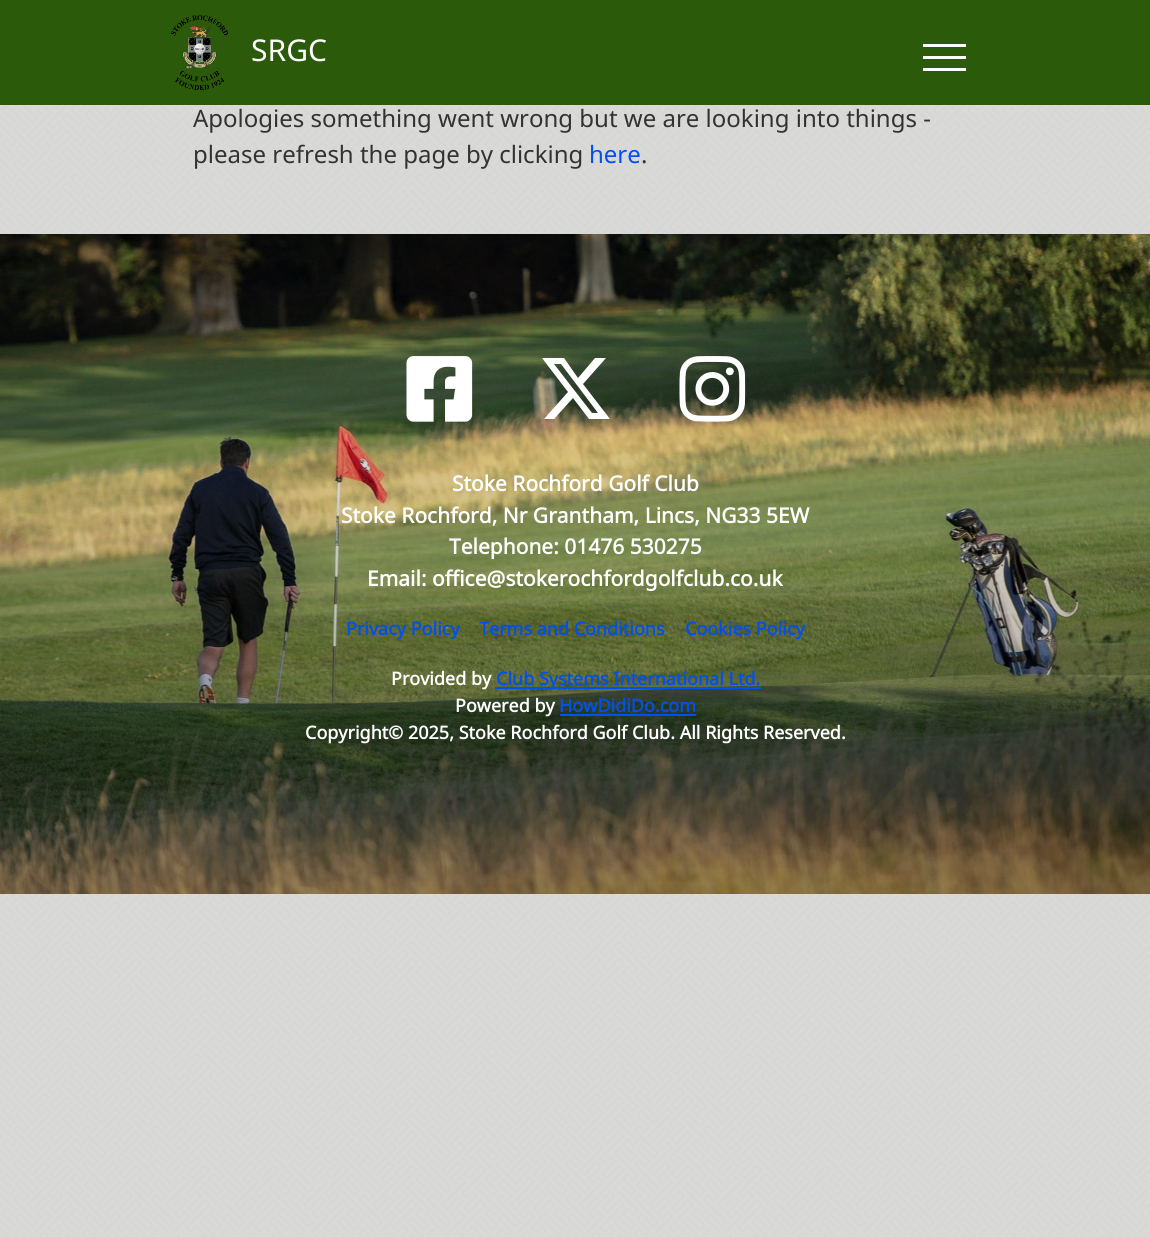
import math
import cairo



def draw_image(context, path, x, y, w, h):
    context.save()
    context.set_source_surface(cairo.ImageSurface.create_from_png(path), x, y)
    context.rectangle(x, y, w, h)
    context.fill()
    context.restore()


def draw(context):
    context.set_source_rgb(224 / 255, 224 / 255, 223 / 255)
    context.paint()
    draw_image(context, "images/1.png", 0, 105, 1150, 1132)
    context.set_source_rgb(43 / 255, 90 / 255, 10 / 255)
    context.rectangle(0, 0, 1150, 105)
    context.fill()
    draw_image(context, "images/2.png", 171, 15, 57, 75)
    context.set_source_rgb(1, 1, 1)
    context.rectangle(923, 44, 43, 3)
    context.fill()
    context.rectangle(923, 56, 43, 3)
    context.fill()
    context.rectangle(923, 68, 43, 3)
    context.fill()
    draw_image(context, "images/3.png", 0, 234, 1150, 660)
    draw_image(context, "images/4.png", 406, 356, 67, 66)
    context.new_path()
    context.move_to(595, 358)
    context.line_to(606, 358)
    context.line_to(583, 384)
    context.line_to(610, 419)
    context.line_to(589, 419)
    context.line_to(573, 398)
    context.line_to(554, 419)
    context.line_to(544, 419)
    context.line_to(568, 392)
    context.line_to(542, 358)
    context.line_to(564, 358)
    context.line_to(578, 378)
    context.close_path()
    context.move_to(592, 413)
    context.line_to(598, 413)
    context.line_to(561, 364)
    context.line_to(554, 364)
    context.close_path()
    context.fill()
    draw_image(context, "images/5.png", 679, 356, 67, 66)
    context.set_source_rgb(0, 80 / 255, 239 / 255)
    context.rectangle(495, 687, 266, 2)
    context.fill()
    context.rectangle(560, 714, 136, 2)
    context.fill()
    context.select_font_face("Noto Sans")
    context.set_font_size(30)
    context.set_source_rgb(1, 1, 1)
    context.move_to(251, 61)
    context.show_text("SRGC")
    context.set_font_size(24)
    context.set_source_rgb(51 / 255, 51 / 255, 51 / 255)
    context.move_to(193, 127)
    context.show_text("Apologies something went wrong but we are looking into things -")
    context.move_to(193, 163)
    context.show_text("please refresh the page by clicking")
    context.set_source_rgb(0, 80 / 255, 239 / 255)
    context.move_to(589, 163)
    context.show_text("here")
    context.set_source_rgb(51 / 255, 51 / 255, 51 / 255)
    context.move_to(641, 163)
    context.show_text(".")
    context.select_font_face("Noto Sans", cairo.FontSlant.NORMAL, cairo.FontWeight.BOLD)
    context.set_font_size(21)
    context.set_source_rgb(1, 1, 1)
    context.move_to(452, 491)
    context.show_text("Stoke Rochford Golf Club")
    context.move_to(341, 523)
    context.show_text("Stoke Rochford, Nr Grantham, Lincs, NG33 5EW")
    context.move_to(449, 554)
    context.show_text("Telephone: 01476 530275")
    context.move_to(367, 586)
    context.show_text("Email: office@stokerochfordgolfclub.co.uk")
    context.set_font_size(18)
    context.set_source_rgb(0, 80 / 255, 239 / 255)
    context.move_to(346, 635)
    context.show_text("Privacy Policy")
    context.move_to(479, 635)
    context.show_text("Terms and Conditions")
    context.move_to(685, 635)
    context.show_text("Cookies Policy")
    context.set_source_rgb(1, 1, 1)
    context.move_to(391, 685)
    context.show_text("Provided by")
    context.set_source_rgb(0, 80 / 255, 239 / 255)
    context.move_to(496, 685)
    context.show_text("Club Systems International Ltd.")
    context.set_source_rgb(1, 1, 1)
    context.move_to(455, 712)
    context.show_text("Powered by")
    context.set_source_rgb(0, 80 / 255, 239 / 255)
    context.move_to(559, 712)
    context.show_text("HowDidiDo.com")
    context.set_source_rgb(1, 1, 1)
    context.move_to(305, 739)
    context.show_text("Copyright© 2025, Stoke Rochford Golf Club. All Rights Reserved.")


surface = cairo.ImageSurface(cairo.Format.RGB24, 1150, 1237)
context = cairo.Context(surface)
options = cairo.FontOptions()
options.set_hint_metrics(cairo.HintMetrics.OFF)
options.set_hint_style(cairo.HintStyle.NONE)
context.set_font_options(options)
context.set_miter_limit(4)
draw(context)
surface.write_to_png("out.png")
